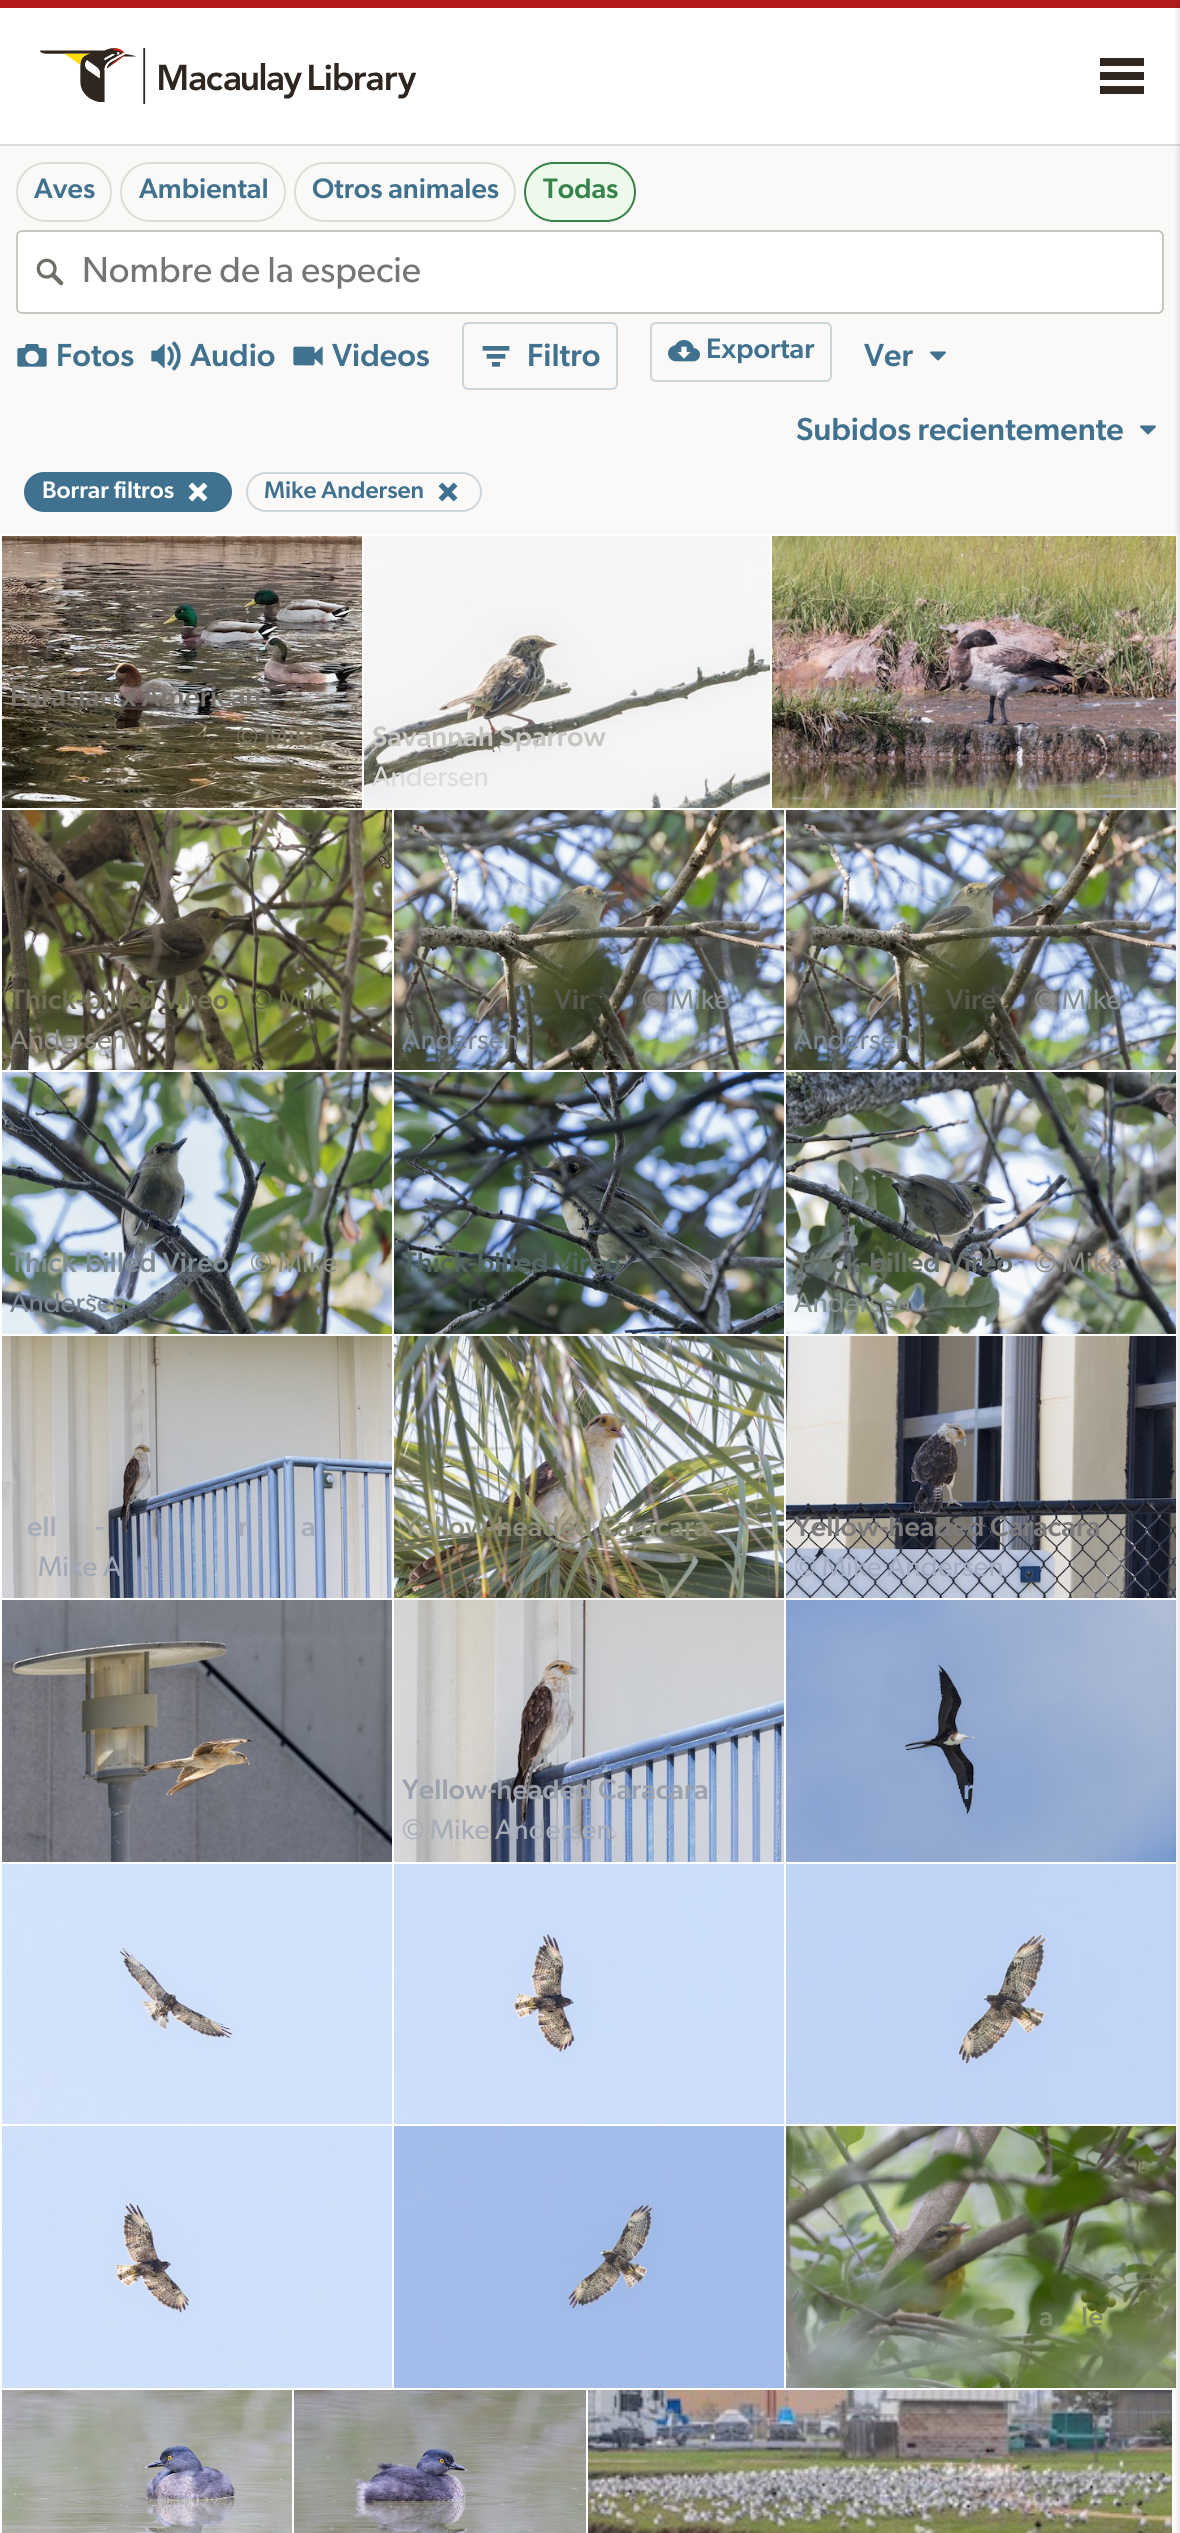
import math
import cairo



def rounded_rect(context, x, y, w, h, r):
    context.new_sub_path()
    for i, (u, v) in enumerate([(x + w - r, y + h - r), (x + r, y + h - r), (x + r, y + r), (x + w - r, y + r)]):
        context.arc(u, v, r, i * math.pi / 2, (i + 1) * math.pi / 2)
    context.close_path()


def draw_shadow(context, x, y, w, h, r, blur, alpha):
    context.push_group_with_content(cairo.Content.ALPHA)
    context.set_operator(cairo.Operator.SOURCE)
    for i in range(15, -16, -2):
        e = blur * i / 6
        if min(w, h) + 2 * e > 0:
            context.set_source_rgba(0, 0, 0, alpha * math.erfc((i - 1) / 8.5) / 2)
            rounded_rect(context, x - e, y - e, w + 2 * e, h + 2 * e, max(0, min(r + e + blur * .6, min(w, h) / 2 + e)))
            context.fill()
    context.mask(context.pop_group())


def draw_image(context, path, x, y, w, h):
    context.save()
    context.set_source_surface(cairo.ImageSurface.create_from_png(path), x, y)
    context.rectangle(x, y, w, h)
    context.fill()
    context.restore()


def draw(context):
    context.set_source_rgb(1, 1, 1)
    context.paint()
    context.set_source_rgb(179 / 255, 27 / 255, 27 / 255)
    context.rectangle(0, 0, 1180, 8)
    context.fill()
    context.set_source_rgb(219 / 255, 219 / 255, 217 / 255)
    context.rectangle(0, 144, 1180, 2)
    context.fill()
    draw_image(context, "images/1.png", 40, 48, 376, 56)
    context.set_source_rgb(46 / 255, 38 / 255, 31 / 255)
    context.set_fill_rule(cairo.FillRule.EVEN_ODD)
    context.new_path()
    context.move_to(1100, 58)
    context.line_to(1144, 58)
    context.line_to(1144, 66)
    context.line_to(1100, 66)
    context.close_path()
    context.move_to(1100, 72)
    context.line_to(1144, 72)
    context.line_to(1144, 80)
    context.line_to(1100, 80)
    context.close_path()
    context.move_to(1100, 86)
    context.line_to(1144, 86)
    context.line_to(1144, 94)
    context.line_to(1100, 94)
    context.close_path()
    context.fill()
    context.set_source_rgb(250 / 255, 249 / 255, 247 / 255)
    context.rectangle(0, 146, 1180, 388)
    context.fill()
    draw_image(context, "images/12.png", 772, 536, 404, 272)
    draw_image(context, "images/16.png", 786, 810, 390, 260)
    draw_image(context, "images/19.png", 786, 1072, 390, 262)
    draw_image(context, "images/22.png", 786, 1336, 390, 262)
    draw_image(context, "images/25.png", 786, 1600, 390, 262)
    draw_image(context, "images/28.png", 786, 1864, 390, 260)
    draw_image(context, "images/31.png", 786, 2126, 390, 262)
    draw_image(context, "images/34.png", 588, 2390, 584, 143)
    context.set_source_rgb(0, 0, 0)
    draw_shadow(context, 1180, 4, 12, 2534, 0, 4, 0.2)
    rounded_rect(context, 17, 163, 94, 58, 29)
    context.set_source_rgb(221 / 255, 220 / 255, 213 / 255)
    context.stroke()
    rounded_rect(context, 121, 163, 164, 58, 29)
    context.stroke()
    rounded_rect(context, 295, 163, 220, 58, 29)
    context.stroke()
    context.set_source_rgb(236 / 255, 249 / 255, 235 / 255)
    rounded_rect(context, 525, 163, 110, 58, 29)
    context.fill_preserve()
    context.set_source_rgb(54 / 255, 130 / 255, 75 / 255)
    context.stroke()
    context.set_source_rgb(1, 1, 1)
    rounded_rect(context, 17, 231, 1146, 82, 5)
    context.fill_preserve()
    context.set_source_rgb(200 / 255, 199 / 255, 192 / 255)
    context.stroke()
    draw_image(context, "images/2.png", 36, 258, 28, 28)
    draw_image(context, "images/3.png", 17, 344, 30, 23)
    draw_image(context, "images/4.png", 151, 341, 30, 30)
    draw_image(context, "images/5.png", 293, 346, 30, 20)
    rounded_rect(context, 463, 323, 154, 66, 5)
    context.set_source_rgb(204 / 255, 215 / 255, 221 / 255)
    context.stroke()
    draw_image(context, "images/6.png", 482, 346, 28, 21)
    rounded_rect(context, 651, 323, 180, 58, 5)
    context.stroke()
    draw_image(context, "images/7.png", 668, 340, 32, 22)
    draw_image(context, "images/8.png", 930, 351, 16, 10)
    draw_image(context, "images/8.png", 1140, 425, 16, 10)
    context.set_source_rgb(64 / 255, 113 / 255, 143 / 255)
    rounded_rect(context, 24, 472, 208, 40, 20)
    context.fill()
    draw_image(context, "images/9.png", 188, 482, 20, 20)
    rounded_rect(context, 247, 473, 234, 38, 19)
    context.set_source_rgb(204 / 255, 215 / 255, 221 / 255)
    context.stroke()
    draw_image(context, "images/10.png", 438, 482, 20, 20)
    draw_image(context, "images/11.png", 2, 536, 360, 272)
    draw_image(context, "images/13.png", 364, 536, 406, 272)
    draw_image(context, "images/14.png", 2, 810, 390, 260)
    draw_image(context, "images/15.png", 394, 810, 390, 260)
    draw_image(context, "images/17.png", 2, 1072, 390, 262)
    draw_image(context, "images/18.png", 394, 1072, 390, 262)
    draw_image(context, "images/20.png", 2, 1336, 390, 262)
    draw_image(context, "images/21.png", 394, 1336, 390, 262)
    draw_image(context, "images/23.png", 2, 1600, 390, 262)
    draw_image(context, "images/24.png", 394, 1600, 390, 262)
    draw_image(context, "images/26.png", 2, 1864, 390, 260)
    draw_image(context, "images/27.png", 394, 1864, 390, 260)
    draw_image(context, "images/29.png", 2, 2126, 390, 262)
    draw_image(context, "images/30.png", 394, 2126, 390, 262)
    draw_image(context, "images/32.png", 2, 2390, 290, 143)
    draw_image(context, "images/33.png", 294, 2390, 292, 143)
    context.select_font_face("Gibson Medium")
    context.set_font_size(28.25)
    context.set_source_rgb(64 / 255, 113 / 255, 143 / 255)
    context.move_to(34, 198)
    context.show_text("Aves")
    context.move_to(139, 198)
    context.show_text("Ambiental")
    context.move_to(312, 198)
    context.show_text("Otros animales")
    context.set_source_rgb(54 / 255, 130 / 255, 75 / 255)
    context.move_to(543, 198)
    context.show_text("Todas")
    context.select_font_face("Gibson")
    context.set_font_size(36.25)
    context.set_source_rgb(117 / 255, 117 / 255, 117 / 255)
    context.move_to(82, 282)
    context.show_text("Nombre de la especie")
    context.select_font_face("Gibson Medium")
    context.set_font_size(32)
    context.set_source_rgb(64 / 255, 113 / 255, 143 / 255)
    context.move_to(56, 366)
    context.show_text("Fotos")
    context.move_to(190, 366)
    context.show_text("Audio")
    context.move_to(332, 366)
    context.show_text("Videos")
    context.move_to(527, 366)
    context.show_text("Filtro")
    context.set_font_size(28.25)
    context.move_to(706, 358)
    context.show_text("Exportar")
    context.set_font_size(32)
    context.move_to(864, 366)
    context.show_text("Ver")
    context.move_to(796, 440)
    context.show_text("Subidos recientemente")
    context.set_font_size(24)
    context.set_source_rgb(1, 1, 1)
    context.move_to(42, 498)
    context.show_text("Borrar filtros")
    context.set_source_rgb(64 / 255, 113 / 255, 143 / 255)
    context.move_to(264, 498)
    context.show_text("Mike Andersen")
    context.set_font_size(28.25)
    context.set_source_rgb(122 / 255, 117 / 255, 110 / 255)
    context.move_to(10, 706)
    context.show_text("Eurasian x American")
    context.select_font_face("Gibson")
    context.set_source_rgb(121 / 255, 113 / 255, 95 / 255)
    context.move_to(236, 746)
    context.show_text("© Mike")
    context.select_font_face("Gibson Medium")
    context.set_source_rgb(198 / 255, 197 / 255, 193 / 255)
    context.move_to(372, 746)
    context.show_text("Savannah Sparrow")
    context.select_font_face("Gibson")
    context.set_source_rgb(219 / 255, 219 / 255, 218 / 255)
    context.move_to(372, 786)
    context.show_text("Andersen")
    context.select_font_face("Gibson Medium")
    context.set_source_rgb(113 / 255, 112 / 255, 85 / 255)
    context.move_to(10, 1009)
    context.show_text("Thick-billed Vireo")
    context.select_font_face("Gibson")
    context.set_source_rgb(101 / 255, 105 / 255, 68 / 255)
    context.move_to(250, 1009)
    context.show_text("© Mike")
    context.set_source_rgb(137 / 255, 136 / 255, 126 / 255)
    context.move_to(10, 1049)
    context.show_text("Andersen")
    context.select_font_face("Gibson Medium")
    context.set_source_rgb(87 / 255, 90 / 255, 77 / 255)
    context.move_to(554, 1009)
    context.show_text("Vir")
    context.select_font_face("Gibson")
    context.set_source_rgb(135 / 255, 145 / 255, 149 / 255)
    context.move_to(642, 1009)
    context.show_text("© Mike")
    context.set_source_rgb(122 / 255, 134 / 255, 146 / 255)
    context.move_to(402, 1049)
    context.show_text("Andersen")
    context.select_font_face("Gibson Medium")
    context.set_source_rgb(87 / 255, 90 / 255, 77 / 255)
    context.move_to(946, 1009)
    context.show_text("Vire")
    context.select_font_face("Gibson")
    context.set_source_rgb(135 / 255, 145 / 255, 149 / 255)
    context.move_to(1034, 1009)
    context.show_text("© Mike")
    context.set_source_rgb(122 / 255, 134 / 255, 146 / 255)
    context.move_to(794, 1049)
    context.show_text("Andersen")
    context.select_font_face("Gibson Medium")
    context.set_source_rgb(127 / 255, 142 / 255, 149 / 255)
    context.move_to(10, 1272)
    context.show_text("Thick-billed Vireo")
    context.select_font_face("Gibson")
    context.set_source_rgb(138 / 255, 143 / 255, 129 / 255)
    context.move_to(250, 1272)
    context.show_text("© Mike")
    context.set_source_rgb(122 / 255, 134 / 255, 146 / 255)
    context.move_to(10, 1312)
    context.show_text("Andersen")
    context.select_font_face("Gibson Medium")
    context.set_source_rgb(83 / 255, 102 / 255, 96 / 255)
    context.move_to(402, 1272)
    context.show_text("Thick-billed Vireo")
    context.select_font_face("Gibson")
    context.set_source_rgb(58 / 255, 69 / 255, 69 / 255)
    context.move_to(467, 1312)
    context.show_text("rs")
    context.select_font_face("Gibson Medium")
    context.set_source_rgb(104 / 255, 112 / 255, 106 / 255)
    context.move_to(794, 1272)
    context.show_text("Thick-billed Vireo")
    context.select_font_face("Gibson")
    context.set_source_rgb(140 / 255, 137 / 255, 132 / 255)
    context.move_to(1034, 1272)
    context.show_text("© Mike")
    context.set_source_rgb(132 / 255, 143 / 255, 137 / 255)
    context.move_to(794, 1312)
    context.show_text("Andersen")
    context.select_font_face("Gibson Medium")
    context.set_source_rgb(166 / 255, 173 / 255, 185 / 255)
    context.move_to(27, 1536)
    context.show_text("ell")
    context.move_to(95, 1536)
    context.show_text("-")
    context.move_to(238, 1536)
    context.show_text("r")
    context.move_to(301, 1536)
    context.show_text("a")
    context.select_font_face("Gibson")
    context.set_source_rgb(160 / 255, 167 / 255, 181 / 255)
    context.move_to(38, 1576)
    context.show_text("Mike A")
    context.select_font_face("Gibson Medium")
    context.set_source_rgb(141 / 255, 142 / 255, 121 / 255)
    context.move_to(402, 1536)
    context.show_text("Yellow-headed Caracara")
    context.set_source_rgb(125 / 255, 123 / 255, 124 / 255)
    context.move_to(794, 1536)
    context.show_text("Yellow-headed Caracara")
    context.select_font_face("Gibson")
    context.set_source_rgb(163 / 255, 173 / 255, 194 / 255)
    context.move_to(794, 1576)
    context.show_text("© Mike Andersen")
    context.select_font_face("Gibson Medium")
    context.set_source_rgb(155 / 255, 161 / 255, 173 / 255)
    context.move_to(402, 1799)
    context.show_text("Yellow-headed Caracara")
    context.select_font_face("Gibson")
    context.set_source_rgb(166 / 255, 173 / 255, 185 / 255)
    context.move_to(402, 1839)
    context.show_text("© Mike Andersen")
    context.select_font_face("Gibson Medium")
    context.set_source_rgb(140 / 255, 163 / 255, 203 / 255)
    context.move_to(963, 1799)
    context.show_text("r")
    context.set_source_rgb(128 / 255, 140 / 255, 103 / 255)
    context.move_to(1039, 2326)
    context.show_text("a")
    context.move_to(1081, 2326)
    context.show_text("le")


surface = cairo.ImageSurface(cairo.Format.RGB24, 1180, 2533)
context = cairo.Context(surface)
options = cairo.FontOptions()
options.set_hint_metrics(cairo.HintMetrics.OFF)
options.set_hint_style(cairo.HintStyle.NONE)
context.set_font_options(options)
context.set_miter_limit(4)
draw(context)
surface.write_to_png("out.png")
